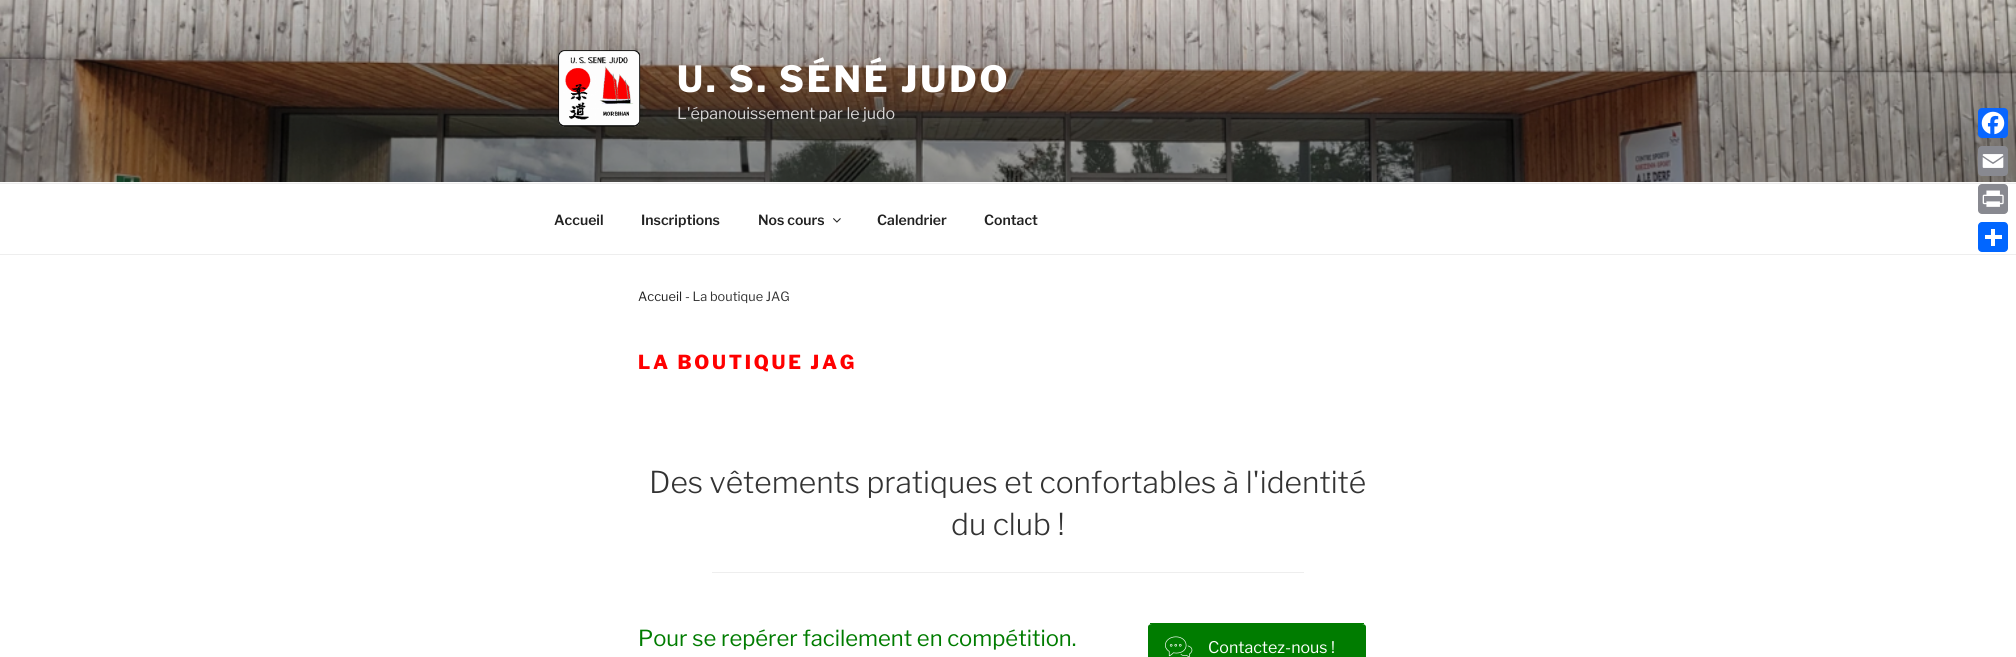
import math
import cairo



def draw_spaced(context, x, y, s, letter, word):
    context.move_to(x, y)
    for ch in s:
        context.show_text(ch)
        context.rel_move_to(letter + word * (ch == ' '), 0)


def rounded_rect(context, x, y, w, h, r):
    context.new_sub_path()
    for i, (u, v) in enumerate([(x + w - r, y + h - r), (x + r, y + h - r), (x + r, y + r), (x + w - r, y + r)]):
        context.arc(u, v, r, i * math.pi / 2, (i + 1) * math.pi / 2)
    context.close_path()


def draw_image(context, path, x, y, w, h):
    context.save()
    context.set_source_surface(cairo.ImageSurface.create_from_png(path), x, y)
    context.rectangle(x, y, w, h)
    context.fill()
    context.restore()


def draw(context):
    context.set_source_rgb(1, 1, 1)
    context.paint()
    context.set_source_rgb(250 / 255, 250 / 255, 250 / 255)
    context.rectangle(0, 182, 2016, 1)
    context.fill()
    draw_image(context, "images/1.png", 0, 0, 2016, 182)
    draw_image(context, "images/2.png", 558, 50, 83, 77)
    context.set_source_rgb(238 / 255, 238 / 255, 238 / 255)
    context.rectangle(0, 183, 2016, 1)
    context.fill()
    context.rectangle(0, 254, 2016, 1)
    context.fill()
    draw_image(context, "images/3.png", 833, 218, 8, 5)
    context.rectangle(712, 572, 592, 1)
    context.fill()
    context.set_source_rgb(0, 124 / 255, 0)
    context.new_path()
    context.move_to(1152, 624)
    context.line_to(1362, 624)
    context.curve_to(1364, 624, 1366, 625, 1366, 627)
    context.line_to(1366, 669)
    context.curve_to(1366, 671, 1364, 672, 1362, 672)
    context.line_to(1152, 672)
    context.curve_to(1150, 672, 1148, 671, 1148, 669)
    context.line_to(1148, 627)
    context.curve_to(1148, 625, 1150, 624, 1152, 624)
    context.close_path()
    context.fill()
    context.rectangle(1150, 623, 214, 1)
    context.fill()
    draw_image(context, "images/4.png", 1165, 636, 28, 21)
    context.set_source_rgb(8 / 255, 102 / 255, 1)
    rounded_rect(context, 1978, 108, 30, 30, 4)
    context.fill()
    draw_image(context, "images/5.png", 1981, 111, 24, 24)
    context.set_source_rgb(136 / 255, 137 / 255, 144 / 255)
    rounded_rect(context, 1978, 146, 30, 30, 4)
    context.fill()
    draw_image(context, "images/6.png", 1982, 154, 22, 14)
    rounded_rect(context, 1978, 184, 30, 30, 4)
    context.fill()
    draw_image(context, "images/7.png", 1982, 190, 22, 17)
    context.set_source_rgb(1 / 255, 102 / 255, 1)
    rounded_rect(context, 1978, 222, 30, 30, 4)
    context.fill()
    context.set_source_rgb(1, 1, 1)
    context.rectangle(1991, 229, 4, 17)
    context.fill()
    context.rectangle(1985, 235, 17, 4)
    context.fill()
    context.select_font_face("Libre Franklin ExtraBold")
    context.set_font_size(36)
    draw_spaced(context, 677, 92, "U. S. SÉNÉ JUDO", 2.9, 0)
    context.select_font_face("Libre Franklin")
    context.set_font_size(16)
    context.set_source_rgb(214 / 255, 212 / 255, 212 / 255)
    context.move_to(677, 119)
    context.show_text("L'épanouissement par le judo")
    context.select_font_face("Libre Franklin SemiBold")
    context.set_font_size(14)
    context.set_source_rgb(34 / 255, 34 / 255, 34 / 255)
    context.move_to(554, 225)
    context.show_text("Accueil")
    context.move_to(641, 225)
    context.show_text("Inscriptions")
    context.move_to(758, 225)
    context.show_text("Nos cours")
    context.move_to(877, 225)
    context.show_text("Calendrier")
    context.move_to(984, 225)
    context.show_text("Contact")
    context.select_font_face("Libre Franklin")
    context.set_font_size(12.75)
    context.move_to(638, 301)
    context.show_text("Accueil")
    context.set_source_rgb(51 / 255, 51 / 255, 51 / 255)
    context.move_to(685, 301)
    context.show_text("- La boutique JAG")
    context.select_font_face("Libre Franklin ExtraBold")
    context.set_font_size(19.25)
    context.set_source_rgb(1, 0, 0)
    draw_spaced(context, 638, 369, "LA BOUTIQUE JAG", 2.75, 0)
    context.select_font_face("Libre Franklin Light")
    context.set_font_size(30)
    context.set_source_rgb(51 / 255, 51 / 255, 51 / 255)
    context.move_to(649, 493)
    context.show_text("Des vêtements pratiques et confortables à l'identité")
    context.move_to(951, 535)
    context.show_text("du club !")
    context.select_font_face("Libre Franklin")
    context.set_font_size(22)
    context.set_source_rgb(0, 124 / 255, 0)
    context.move_to(638, 646)
    context.show_text("Pour se repérer facilement en compétition.")
    context.set_font_size(16)
    context.set_source_rgb(1, 1, 1)
    context.move_to(1208, 653)
    context.show_text("Contactez-nous !")


surface = cairo.ImageSurface(cairo.Format.RGB24, 2016, 657)
context = cairo.Context(surface)
options = cairo.FontOptions()
options.set_hint_metrics(cairo.HintMetrics.OFF)
options.set_hint_style(cairo.HintStyle.NONE)
context.set_font_options(options)
context.set_miter_limit(4)
draw(context)
surface.write_to_png("out.png")
